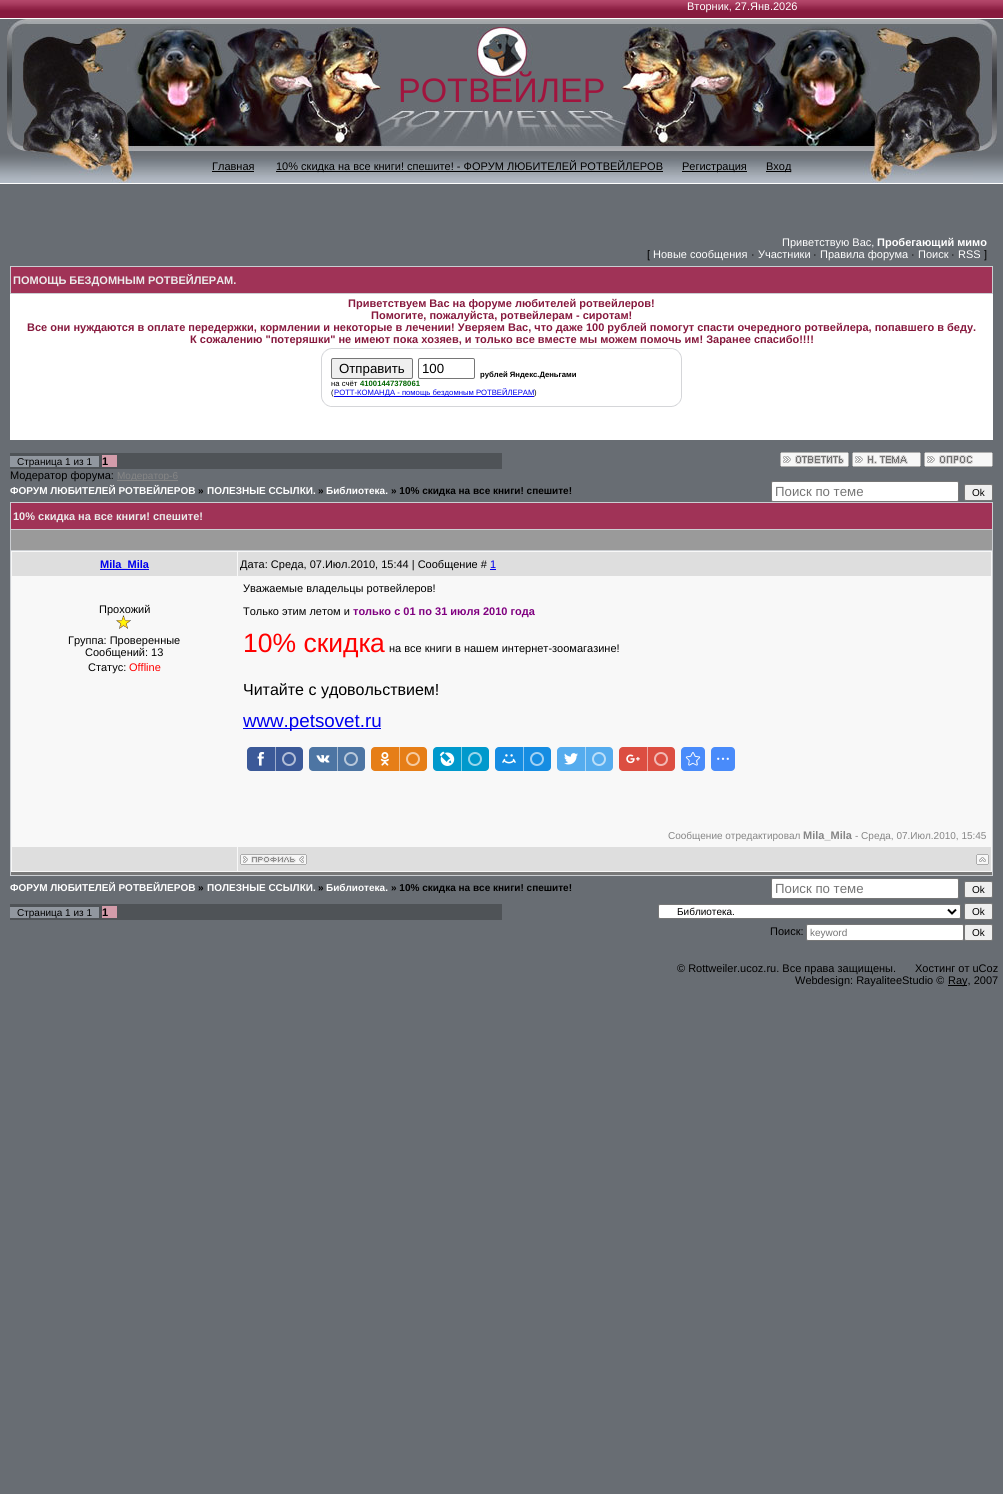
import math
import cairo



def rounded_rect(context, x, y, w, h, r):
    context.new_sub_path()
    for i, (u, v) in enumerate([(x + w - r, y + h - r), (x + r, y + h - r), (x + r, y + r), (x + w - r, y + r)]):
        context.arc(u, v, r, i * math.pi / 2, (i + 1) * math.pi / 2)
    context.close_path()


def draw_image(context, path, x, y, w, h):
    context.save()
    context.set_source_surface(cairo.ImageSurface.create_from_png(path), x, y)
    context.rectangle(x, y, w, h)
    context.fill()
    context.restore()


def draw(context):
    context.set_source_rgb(104 / 255, 109 / 255, 115 / 255)
    context.paint()
    draw_image(context, "images/1.png", 0, 0, 1003, 184)
    draw_image(context, "images/2.png", 7, 19, 310, 132)
    draw_image(context, "images/3.png", 317, 19, 370, 132)
    draw_image(context, "images/4.png", 687, 19, 310, 132)
    draw_image(context, "images/5.png", 31, 151, 942, 32)
    context.set_source_rgb(0, 0, 0)
    context.rectangle(212, 171, 42, 1)
    context.fill()
    context.rectangle(276, 171, 387, 1)
    context.fill()
    context.rectangle(682, 171, 65, 1)
    context.fill()
    context.rectangle(766, 171, 25, 1)
    context.fill()
    context.set_source_rgb(203 / 255, 206 / 255, 210 / 255)
    context.rectangle(10, 266, 983, 28)
    context.fill()
    context.set_source_rgb(160 / 255, 51 / 255, 87 / 255)
    context.rectangle(11, 267, 981, 26)
    context.fill()
    context.set_source_rgb(1, 1, 1)
    context.rectangle(10, 294, 983, 146)
    context.fill()
    draw_image(context, "images/6.png", 672, 348, 10, 49)
    draw_image(context, "images/7.png", 331, 397, 351, 10)
    draw_image(context, "images/8.png", 321, 358, 10, 49)
    draw_image(context, "images/9.png", 321, 348, 351, 10)
    context.set_source_rgb(239 / 255, 239 / 255, 239 / 255)
    rounded_rect(context, 331.5, 358.5, 81, 20, 1.5)
    context.fill_preserve()
    context.set_source_rgb(118 / 255, 118 / 255, 118 / 255)
    context.set_line_width(1)
    context.stroke()
    rounded_rect(context, 418.5, 358.5, 56, 20, 1.5)
    context.stroke()
    context.set_source_rgb(0, 0, 238 / 255)
    context.rectangle(334, 396, 200, 1)
    context.fill()
    context.set_source_rgb(79 / 255, 83 / 255, 87 / 255)
    context.rectangle(10, 453, 492, 16)
    context.fill()
    context.set_source_rgb(145 / 255, 151 / 255, 159 / 255)
    context.rectangle(10, 456, 89, 11)
    context.fill()
    context.set_source_rgb(211 / 255, 156 / 255, 170 / 255)
    context.rectangle(102, 455, 15, 12)
    context.fill()
    draw_image(context, "images/10.png", 780, 452, 69, 15)
    draw_image(context, "images/11.png", 852, 452, 69, 15)
    draw_image(context, "images/12.png", 924, 452, 69, 15)
    context.set_source_rgb(133 / 255, 133 / 255, 133 / 255)
    context.rectangle(117, 480, 61, 1)
    context.fill()
    context.set_source_rgb(1, 1, 1)
    rounded_rect(context, 771.5, 481.5, 187, 20, 1.5)
    context.fill_preserve()
    context.set_source_rgb(118 / 255, 118 / 255, 118 / 255)
    context.stroke()
    context.set_source_rgb(239 / 255, 239 / 255, 239 / 255)
    rounded_rect(context, 964.5, 484.5, 28, 16, 1.5)
    context.fill_preserve()
    context.set_source_rgb(118 / 255, 118 / 255, 118 / 255)
    context.stroke()
    context.set_source_rgb(203 / 255, 206 / 255, 210 / 255)
    context.rectangle(10, 502, 983, 374)
    context.fill()
    context.set_source_rgb(160 / 255, 51 / 255, 87 / 255)
    context.rectangle(11, 503, 981, 26)
    context.fill()
    context.set_source_rgb(154 / 255, 154 / 255, 154 / 255)
    context.rectangle(11, 530, 981, 20)
    context.fill()
    context.set_source_rgb(248 / 255, 248 / 255, 248 / 255)
    context.rectangle(11, 551, 981, 321)
    context.fill()
    context.set_source_rgb(120 / 255, 120 / 255, 120 / 255)
    context.rectangle(11, 872, 981, 3)
    context.fill()
    context.set_source_rgb(222 / 255, 222 / 255, 222 / 255)
    context.rectangle(12, 552, 225, 24)
    context.fill()
    context.set_source_rgb(0, 0, 238 / 255)
    context.rectangle(100, 569, 49, 1)
    context.fill()
    context.set_source_rgb(222 / 255, 222 / 255, 222 / 255)
    context.rectangle(238, 552, 753, 24)
    context.fill()
    context.set_source_rgb(0, 0, 238 / 255)
    context.rectangle(490, 569, 6, 1)
    context.fill()
    context.rectangle(243, 728, 138, 1)
    context.fill()
    context.set_source_rgb(59 / 255, 89 / 255, 152 / 255)
    rounded_rect(context, 247, 747, 56, 24, 4)
    context.fill()
    draw_image(context, "images/14.png", 257, 752, 8, 14)
    context.set_source_rgb(157 / 255, 172 / 255, 204 / 255)
    context.rectangle(275, 747, 1, 24)
    context.fill()
    context.arc(289, 759, 6, 0, 2 * math.pi)
    context.set_source_rgb(177 / 255, 189 / 255, 214 / 255)
    context.set_line_width(2)
    context.stroke()
    context.set_source_rgb(77 / 255, 117 / 255, 163 / 255)
    rounded_rect(context, 309, 747, 56, 24, 4)
    context.fill()
    draw_image(context, "images/15.png", 316, 755, 14, 8)
    context.set_source_rgb(166 / 255, 186 / 255, 209 / 255)
    context.rectangle(337, 747, 1, 24)
    context.fill()
    context.arc(351, 759, 6, 0, 2 * math.pi)
    context.set_source_rgb(184 / 255, 200 / 255, 218 / 255)
    context.stroke()
    context.set_source_rgb(230 / 255, 126 / 255, 23 / 255)
    rounded_rect(context, 371, 747, 56, 24, 4)
    context.fill()
    draw_image(context, "images/16.png", 380, 752, 9, 14)
    context.set_source_rgb(243 / 255, 191 / 255, 139 / 255)
    context.rectangle(399, 747, 1, 24)
    context.fill()
    context.arc(413, 759, 6, 0, 2 * math.pi)
    context.set_source_rgb(245 / 255, 203 / 255, 162 / 255)
    context.stroke()
    context.set_source_rgb(0, 153 / 255, 204 / 255)
    rounded_rect(context, 433, 747, 56, 24, 4)
    context.fill()
    draw_image(context, "images/17.png", 439, 751, 16, 15)
    context.set_source_rgb(128 / 255, 204 / 255, 230 / 255)
    context.rectangle(461, 747, 1, 24)
    context.fill()
    context.arc(475, 759, 6, 0, 2 * math.pi)
    context.set_source_rgb(153 / 255, 214 / 255, 235 / 255)
    context.stroke()
    context.set_source_rgb(22 / 255, 141 / 255, 226 / 255)
    rounded_rect(context, 495, 747, 56, 24, 4)
    context.fill()
    draw_image(context, "images/18.png", 502, 754, 14, 10)
    context.set_source_rgb(139 / 255, 198 / 255, 241 / 255)
    context.rectangle(523, 747, 1, 24)
    context.fill()
    context.arc(537, 759, 6, 0, 2 * math.pi)
    context.set_source_rgb(162 / 255, 209 / 255, 243 / 255)
    context.stroke()
    context.set_source_rgb(85 / 255, 172 / 255, 238 / 255)
    rounded_rect(context, 557, 747, 56, 24, 4)
    context.fill()
    draw_image(context, "images/19.png", 564, 753, 14, 12)
    context.set_source_rgb(170 / 255, 214 / 255, 247 / 255)
    context.rectangle(585, 747, 1, 24)
    context.fill()
    context.arc(599, 759, 6, 0, 2 * math.pi)
    context.set_source_rgb(187 / 255, 222 / 255, 248 / 255)
    context.stroke()
    context.set_source_rgb(220 / 255, 78 / 255, 65 / 255)
    rounded_rect(context, 619, 747, 56, 24, 4)
    context.fill()
    draw_image(context, "images/20.png", 626, 754, 14, 10)
    context.set_source_rgb(238 / 255, 167 / 255, 160 / 255)
    context.rectangle(647, 747, 1, 24)
    context.fill()
    context.arc(661, 759, 6, 0, 2 * math.pi)
    context.set_source_rgb(241 / 255, 184 / 255, 179 / 255)
    context.stroke()
    context.set_source_rgb(73 / 255, 139 / 255, 250 / 255)
    rounded_rect(context, 681, 747, 24, 24, 4)
    context.fill()
    draw_image(context, "images/21.png", 685, 752, 16, 14)
    rounded_rect(context, 711, 747, 24, 24, 4)
    context.fill()
    draw_image(context, "images/22.png", 717, 757, 12, 3)
    context.set_source_rgb(222 / 255, 222 / 255, 222 / 255)
    context.rectangle(12, 847, 225, 24)
    context.fill()
    context.rectangle(238, 847, 753, 24)
    context.fill()
    draw_image(context, "images/23.png", 240, 854, 67, 11)
    draw_image(context, "images/24.png", 976, 854, 13, 11)
    context.set_source_rgb(1, 1, 1)
    rounded_rect(context, 771.5, 878.5, 187, 20, 1.5)
    context.fill_preserve()
    context.set_source_rgb(118 / 255, 118 / 255, 118 / 255)
    context.set_line_width(1)
    context.stroke()
    context.set_source_rgb(239 / 255, 239 / 255, 239 / 255)
    rounded_rect(context, 964.5, 881.5, 28, 16, 1.5)
    context.fill_preserve()
    context.set_source_rgb(118 / 255, 118 / 255, 118 / 255)
    context.stroke()
    context.set_source_rgb(79 / 255, 83 / 255, 87 / 255)
    context.rectangle(10, 904, 492, 16)
    context.fill()
    context.set_source_rgb(145 / 255, 151 / 255, 159 / 255)
    context.rectangle(10, 907, 89, 11)
    context.fill()
    context.set_source_rgb(211 / 255, 156 / 255, 170 / 255)
    context.rectangle(102, 906, 15, 12)
    context.fill()
    context.set_source_rgb(1, 1, 1)
    rounded_rect(context, 658.5, 904.5, 302, 14, 1.5)
    context.fill_preserve()
    context.set_source_rgb(118 / 255, 118 / 255, 118 / 255)
    context.stroke()
    context.new_path()
    context.move_to(948, 909.5)
    context.line_to(952, 913.5)
    context.line_to(956, 909.5)
    context.set_source_rgb(0, 0, 0)
    context.set_line_width(2)
    context.stroke()
    context.set_source_rgb(239 / 255, 239 / 255, 239 / 255)
    rounded_rect(context, 964.5, 903.5, 28, 16, 1.5)
    context.fill_preserve()
    context.set_source_rgb(118 / 255, 118 / 255, 118 / 255)
    context.set_line_width(1)
    context.stroke()
    context.set_source_rgb(1, 1, 1)
    rounded_rect(context, 806.5, 924.5, 157, 16, 1.5)
    context.fill_preserve()
    context.set_source_rgb(118 / 255, 118 / 255, 118 / 255)
    context.stroke()
    context.set_source_rgb(239 / 255, 239 / 255, 239 / 255)
    rounded_rect(context, 964.5, 924.5, 28, 16, 1.5)
    context.fill_preserve()
    context.set_source_rgb(118 / 255, 118 / 255, 118 / 255)
    context.stroke()
    context.set_source_rgb(0, 0, 0)
    context.rectangle(948, 985, 19, 1)
    context.fill()
    context.select_font_face("Liberation Sans")
    context.set_font_size(11)
    context.set_source_rgb(1, 1, 1)
    context.move_to(687, 10)
    context.show_text("Вторник, 27.Янв.2026")
    context.set_font_size(34)
    context.set_source_rgb(160 / 255, 21 / 255, 62 / 255)
    context.move_to(398, 102)
    context.show_text("РОТВЕЙЛЕР")
    context.set_font_size(11)
    context.set_source_rgb(0, 0, 0)
    context.move_to(212, 170)
    context.show_text("Главная")
    context.move_to(276, 170)
    context.show_text("10% скидка на все книги! спешите! - ФОРУМ ЛЮБИТЕЛЕЙ РОТВЕЙЛЕРОВ")
    context.move_to(682, 170)
    context.show_text("Регистрация")
    context.move_to(766, 170)
    context.show_text("Вход")
    context.set_source_rgb(1, 1, 1)
    context.move_to(782, 246)
    context.show_text("Приветствую Вас,")
    context.select_font_face("Liberation Sans", cairo.FontSlant.NORMAL, cairo.FontWeight.BOLD)
    context.move_to(877, 246)
    context.show_text("Пробегающий мимо")
    context.select_font_face("Liberation Sans")
    context.set_source_rgb(0, 0, 0)
    context.move_to(647, 258)
    context.show_text("[")
    context.set_source_rgb(1, 1, 1)
    context.move_to(653, 258)
    context.show_text("Новые сообщения")
    context.set_source_rgb(0, 0, 0)
    context.move_to(751, 258)
    context.show_text("·")
    context.set_source_rgb(1, 1, 1)
    context.move_to(758, 258)
    context.show_text("Участники")
    context.set_source_rgb(0, 0, 0)
    context.move_to(813, 258)
    context.show_text("·")
    context.set_source_rgb(1, 1, 1)
    context.move_to(820, 258)
    context.show_text("Правила форума")
    context.set_source_rgb(0, 0, 0)
    context.move_to(911, 258)
    context.show_text("·")
    context.set_source_rgb(1, 1, 1)
    context.move_to(918, 258)
    context.show_text("Поиск")
    context.set_source_rgb(0, 0, 0)
    context.move_to(951, 258)
    context.show_text("·")
    context.set_source_rgb(1, 1, 1)
    context.move_to(958, 258)
    context.show_text("RSS")
    context.set_source_rgb(0, 0, 0)
    context.move_to(984, 258)
    context.show_text("]")
    context.select_font_face("Liberation Sans", cairo.FontSlant.NORMAL, cairo.FontWeight.BOLD)
    context.set_source_rgb(235 / 255, 235 / 255, 235 / 255)
    context.move_to(13, 284)
    context.show_text("ПОМОЩЬ БЕЗДОМНЫМ РОТВЕЙЛЕРАМ.")
    context.set_source_rgb(134 / 255, 25 / 255, 61 / 255)
    context.move_to(348, 307)
    context.show_text("Приветствуем Вас на форуме любителей ротвейлеров!")
    context.move_to(371, 319)
    context.show_text("Помогите, пожалуйста, ротвейлерам - сиротам!")
    context.move_to(27, 331)
    context.show_text("Все они нуждаются в оплате передержки, кормлении и некоторые в лечении! Уверяем Вас, что даже 100 рублей помогут спасти очередного ротвейлера, попавшего в беду.")
    context.move_to(190, 343)
    context.show_text("К сожалению \"потеряшки\" не имеют пока хозяев, и только все вместе мы можем помочь им! Заранее cпасибо!!!!")
    context.select_font_face("Liberation Sans")
    context.set_font_size(13.25)
    context.set_source_rgb(0, 0, 0)
    context.move_to(339, 373)
    context.show_text("Отправить")
    context.move_to(422, 373)
    context.show_text("100")
    context.select_font_face("Liberation Sans", cairo.FontSlant.NORMAL, cairo.FontWeight.BOLD)
    context.set_font_size(7.7)
    context.move_to(480, 377)
    context.show_text("рублей Яндекс.Деньгами")
    context.select_font_face("Liberation Sans")
    context.move_to(331, 386)
    context.show_text("на счёт")
    context.select_font_face("Liberation Sans", cairo.FontSlant.NORMAL, cairo.FontWeight.BOLD)
    context.set_source_rgb(0, 102 / 255, 0)
    context.move_to(360, 386)
    context.show_text("41001447378061")
    context.select_font_face("Liberation Sans")
    context.set_source_rgb(0, 0, 0)
    context.move_to(331, 395)
    context.show_text("(")
    context.set_source_rgb(0, 0, 238 / 255)
    context.move_to(334, 395)
    context.show_text("РОТТ-КОМАНДА - помощь бездомным РОТВЕЙЛЕРАМ")
    context.set_source_rgb(0, 0, 0)
    context.move_to(534, 395)
    context.show_text(")")
    context.set_font_size(10)
    context.move_to(17, 465)
    context.show_text("Страница 1 из 1")
    context.select_font_face("Liberation Sans", cairo.FontSlant.NORMAL, cairo.FontWeight.BOLD)
    context.set_font_size(11)
    context.move_to(102, 465)
    context.show_text("1")
    context.select_font_face("Liberation Sans")
    context.move_to(10, 479)
    context.show_text("Модератор форума:")
    context.set_font_size(10)
    context.set_source_rgb(133 / 255, 133 / 255, 133 / 255)
    context.move_to(117, 479)
    context.show_text("Модератор-6")
    context.select_font_face("Liberation Sans", cairo.FontSlant.NORMAL, cairo.FontWeight.BOLD)
    context.set_source_rgb(1, 1, 1)
    context.move_to(10, 494)
    context.show_text("ФОРУМ ЛЮБИТЕЛЕЙ РОТВЕЙЛЕРОВ")
    context.set_source_rgb(0, 0, 0)
    context.move_to(198, 494)
    context.show_text("»")
    context.set_source_rgb(1, 1, 1)
    context.move_to(207, 494)
    context.show_text("ПОЛЕЗНЫЕ ССЫЛКИ.")
    context.set_source_rgb(0, 0, 0)
    context.move_to(318, 494)
    context.show_text("»")
    context.set_source_rgb(1, 1, 1)
    context.move_to(326, 494)
    context.show_text("Библиотека.")
    context.set_source_rgb(0, 0, 0)
    context.move_to(391, 494)
    context.show_text("» 10% скидка на все книги! спешите!")
    context.select_font_face("Liberation Sans")
    context.set_font_size(13.25)
    context.set_source_rgb(117 / 255, 117 / 255, 117 / 255)
    context.move_to(775, 496)
    context.show_text("Поиск по теме")
    context.set_font_size(10)
    context.set_source_rgb(0, 0, 0)
    context.move_to(972, 496)
    context.show_text("Ok")
    context.select_font_face("Liberation Sans", cairo.FontSlant.NORMAL, cairo.FontWeight.BOLD)
    context.set_font_size(11)
    context.set_source_rgb(235 / 255, 235 / 255, 235 / 255)
    context.move_to(13, 520)
    context.show_text("10% скидка на все книги! спешите!")
    context.set_source_rgb(0, 0, 238 / 255)
    context.move_to(100, 568)
    context.show_text("Mila_Mila")
    context.select_font_face("Liberation Sans")
    context.set_source_rgb(0, 0, 0)
    context.move_to(240, 568)
    context.show_text("Дата: Среда, 07.Июл.2010, 15:44 | Сообщение #")
    context.set_source_rgb(0, 0, 238 / 255)
    context.move_to(490, 568)
    context.show_text("1")
    context.set_source_rgb(0, 0, 0)
    context.move_to(99, 613)
    context.show_text("Прохожий")
    draw_image(context, "images/13.png", 116, 615, 15, 14)
    context.move_to(68, 644)
    context.show_text("Группа: Проверенные")
    context.move_to(85, 656)
    context.show_text("Сообщений: 13")
    context.move_to(88, 671)
    context.show_text("Статус:")
    context.set_source_rgb(1, 0, 0)
    context.move_to(129, 671)
    context.show_text("Offline")
    context.set_source_rgb(0, 0, 0)
    context.move_to(243, 592)
    context.show_text("Уважаемые владельцы ротвейлеров!")
    context.move_to(243, 615)
    context.show_text("Только этим летом и")
    context.select_font_face("Liberation Sans", cairo.FontSlant.NORMAL, cairo.FontWeight.BOLD)
    context.set_source_rgb(128 / 255, 0, 128 / 255)
    context.move_to(353, 615)
    context.show_text("только с 01 по 31 июля 2010 года")
    context.select_font_face("Liberation Sans")
    context.set_font_size(26.5)
    context.set_source_rgb(1, 0, 0)
    context.move_to(243, 652)
    context.show_text("10% скидка")
    context.set_font_size(11)
    context.set_source_rgb(0, 0, 0)
    context.move_to(389, 652)
    context.show_text("на все книги в нашем интернет-зоомагазине!")
    context.set_font_size(16)
    context.move_to(243, 695)
    context.show_text("Читайте с удовольствием!")
    context.set_font_size(18.75)
    context.set_source_rgb(0, 0, 238 / 255)
    context.move_to(243, 727)
    context.show_text("www.petsovet.ru")
    context.set_font_size(10)
    context.set_source_rgb(133 / 255, 133 / 255, 133 / 255)
    context.move_to(668, 839)
    context.show_text("Сообщение отредактировал")
    context.select_font_face("Liberation Sans", cairo.FontSlant.NORMAL, cairo.FontWeight.BOLD)
    context.set_font_size(11)
    context.move_to(803, 839)
    context.show_text("Mila_Mila")
    context.select_font_face("Liberation Sans")
    context.set_font_size(10)
    context.move_to(855, 839)
    context.show_text("- Среда, 07.Июл.2010, 15:45")
    context.select_font_face("Liberation Sans", cairo.FontSlant.NORMAL, cairo.FontWeight.BOLD)
    context.set_source_rgb(1, 1, 1)
    context.move_to(10, 891)
    context.show_text("ФОРУМ ЛЮБИТЕЛЕЙ РОТВЕЙЛЕРОВ")
    context.set_source_rgb(0, 0, 0)
    context.move_to(198, 891)
    context.show_text("»")
    context.set_source_rgb(1, 1, 1)
    context.move_to(207, 891)
    context.show_text("ПОЛЕЗНЫЕ ССЫЛКИ.")
    context.set_source_rgb(0, 0, 0)
    context.move_to(318, 891)
    context.show_text("»")
    context.set_source_rgb(1, 1, 1)
    context.move_to(326, 891)
    context.show_text("Библиотека.")
    context.set_source_rgb(0, 0, 0)
    context.move_to(391, 891)
    context.show_text("» 10% скидка на все книги! спешите!")
    context.select_font_face("Liberation Sans")
    context.set_font_size(13.25)
    context.set_source_rgb(117 / 255, 117 / 255, 117 / 255)
    context.move_to(775, 893)
    context.show_text("Поиск по теме")
    context.set_font_size(10)
    context.set_source_rgb(0, 0, 0)
    context.move_to(972, 893)
    context.show_text("Ok")
    context.move_to(17, 916)
    context.show_text("Страница 1 из 1")
    context.select_font_face("Liberation Sans", cairo.FontSlant.NORMAL, cairo.FontWeight.BOLD)
    context.set_font_size(11)
    context.move_to(102, 916)
    context.show_text("1")
    context.select_font_face("Liberation Sans")
    context.set_font_size(10)
    context.move_to(677, 915)
    context.show_text("Библиотека.")
    context.move_to(972, 915)
    context.show_text("Ok")
    context.set_font_size(11)
    context.move_to(770, 935)
    context.show_text("Поиск:")
    context.set_font_size(10)
    context.set_source_rgb(117 / 255, 117 / 255, 117 / 255)
    context.move_to(810, 936)
    context.show_text("keyword")
    context.set_source_rgb(0, 0, 0)
    context.move_to(972, 936)
    context.show_text("Ok")
    context.set_font_size(11)
    context.move_to(677, 972)
    context.show_text("© Rottweiler.ucoz.ru. Все права защищены.")
    context.move_to(915, 972)
    context.show_text("Хостинг от uCoz")
    context.move_to(795, 984)
    context.show_text("Webdesign: RayaliteeStudio ©")
    context.move_to(948, 984)
    context.show_text("Ray, 2007")


surface = cairo.ImageSurface(cairo.Format.RGB24, 1003, 1494)
context = cairo.Context(surface)
options = cairo.FontOptions()
options.set_hint_metrics(cairo.HintMetrics.OFF)
options.set_hint_style(cairo.HintStyle.NONE)
context.set_font_options(options)
context.set_miter_limit(4)
draw(context)
surface.write_to_png("out.png")
